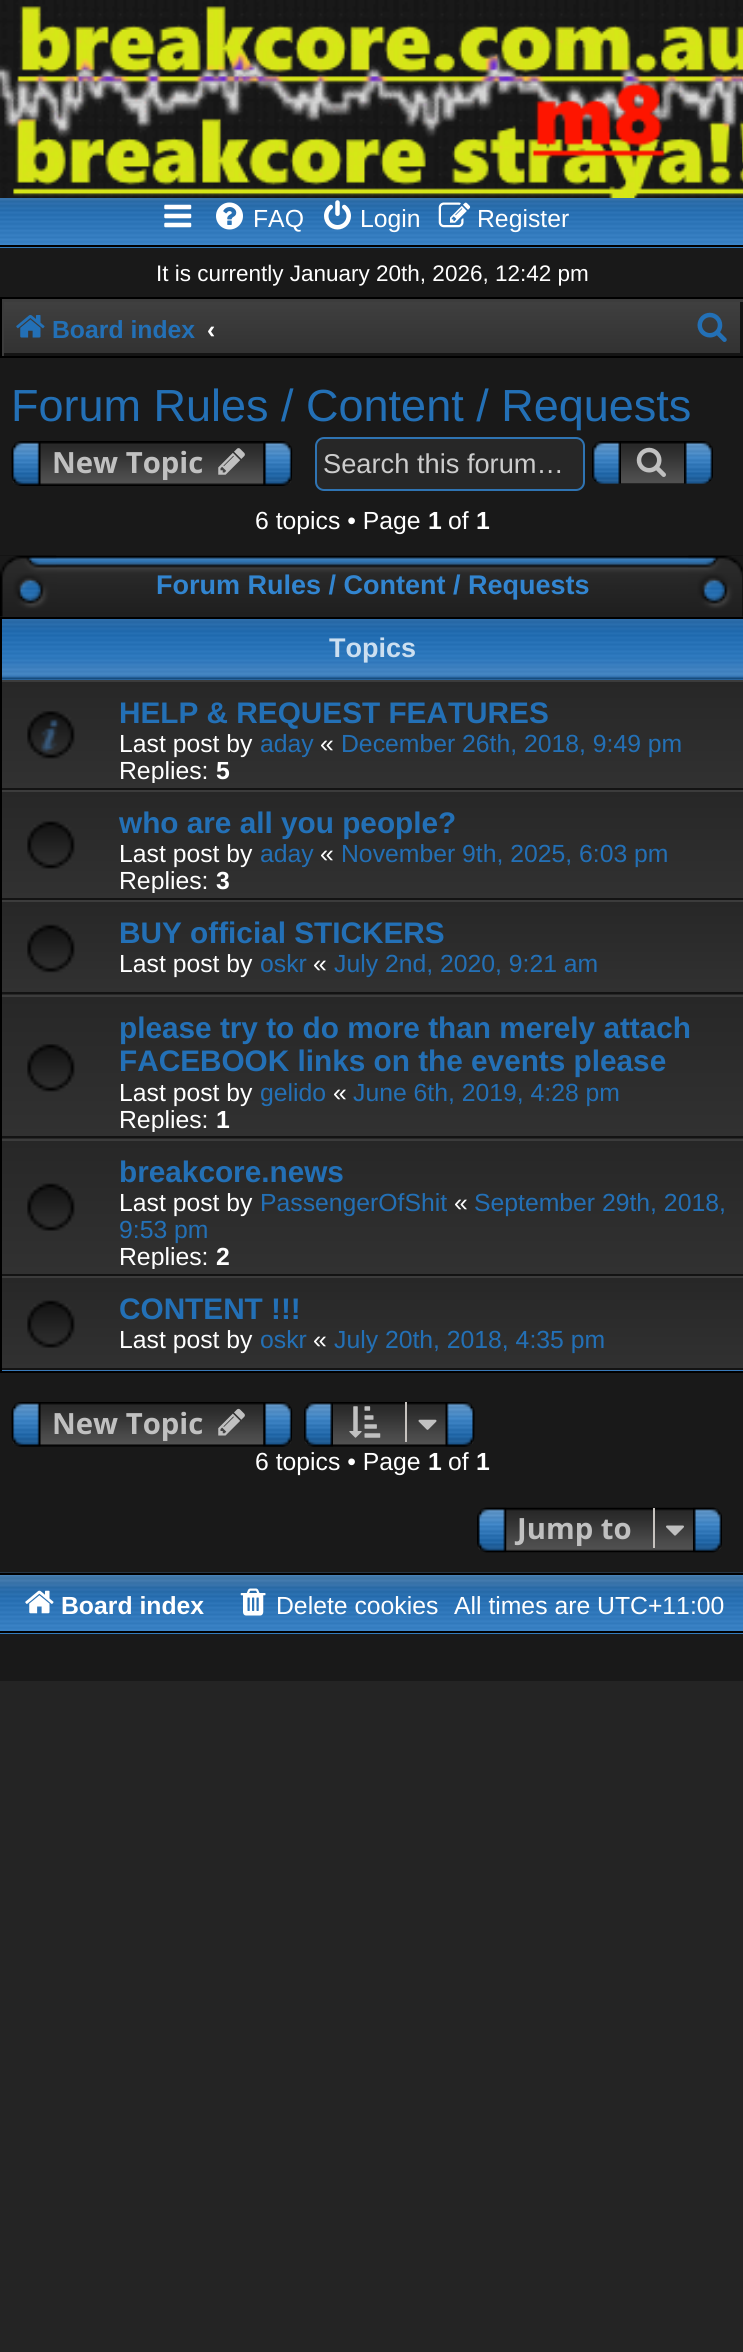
import math
import cairo



def rounded_rect(context, x, y, w, h, r):
    context.new_sub_path()
    for i, (u, v) in enumerate([(x + w - r, y + h - r), (x + r, y + h - r), (x + r, y + r), (x + w - r, y + r)]):
        context.arc(u, v, r, i * math.pi / 2, (i + 1) * math.pi / 2)
    context.close_path()


def draw_image(context, path, x, y, w, h):
    context.save()
    context.set_source_surface(cairo.ImageSurface.create_from_png(path), x, y)
    context.rectangle(x, y, w, h)
    context.fill()
    context.restore()


def draw(context):
    context.set_source_rgb(36 / 255, 36 / 255, 36 / 255)
    context.paint()
    context.set_source_rgb(25 / 255, 25 / 255, 25 / 255)
    context.rectangle(0, 248, 743, 1433)
    context.fill()
    draw_image(context, "images/1.png", 0, 0, 743, 198)
    context.set_source_rgb(47 / 255, 116 / 255, 179 / 255)
    context.rectangle(0, 247, 743, 1)
    context.fill()
    draw_image(context, "images/2.png", 0, 198, 743, 50)
    context.set_source_rgb(0, 0, 0)
    context.rectangle(0, 245, 743, 2)
    context.fill()
    draw_image(context, "images/3.png", 164, 204, 28, 24)
    draw_image(context, "images/4.png", 216, 202, 27, 28)
    draw_image(context, "images/5.png", 324, 200, 27, 30)
    draw_image(context, "images/6.png", 438, 202, 33, 26)
    gradient = cairo.LinearGradient(372, 299, 372, 356)
    gradient.add_color_stop_rgba(0, 64 / 255, 64 / 255, 64 / 255, 1)
    gradient.add_color_stop_rgba(1, 49 / 255, 49 / 255, 49 / 255, 1)
    context.set_source(gradient)
    context.rectangle(4, 302, 736, 51)
    context.fill()
    context.save()
    context.rectangle(2, 299, 741, 57)
    context.clip()
    context.set_source_rgb(19 / 255, 19 / 255, 19 / 255)
    context.set_fill_rule(cairo.FillRule.EVEN_ODD)
    context.new_path()
    context.move_to(-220, 76)
    context.line_to(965, 76)
    context.line_to(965, 578)
    context.line_to(-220, 578)
    context.close_path()
    context.move_to(0, 297)
    context.line_to(740, 297)
    context.line_to(740, 353)
    context.line_to(0, 353)
    context.close_path()
    context.fill()
    context.set_source_rgb(60 / 255, 60 / 255, 60 / 255)
    context.new_path()
    context.move_to(-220, 76)
    context.line_to(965, 76)
    context.line_to(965, 578)
    context.line_to(-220, 578)
    context.close_path()
    context.move_to(4, 302)
    context.line_to(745, 302)
    context.line_to(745, 358)
    context.line_to(4, 358)
    context.close_path()
    context.fill()
    context.restore()
    context.rectangle(1, 298, 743, 59)
    context.set_source_rgb(0, 0, 0)
    context.stroke()
    draw_image(context, "images/7.png", 16, 315, 29, 23)
    draw_image(context, "images/8.png", 697, 312, 30, 30)
    draw_image(context, "images/9.png", 11, 441, 282, 45)
    draw_image(context, "images/10.png", 218, 448, 27, 27)
    context.set_source_rgb(39 / 255, 39 / 255, 39 / 255)
    rounded_rect(context, 316, 438, 268, 52, 8)
    context.fill_preserve()
    context.set_source_rgb(47 / 255, 116 / 255, 179 / 255)
    context.stroke()
    draw_image(context, "images/11.png", 592, 441, 121, 43)
    draw_image(context, "images/12.png", 636, 447, 30, 30)
    context.set_source_rgb(31 / 255, 31 / 255, 31 / 255)
    context.rectangle(0, 616, 743, 1)
    context.fill()
    draw_image(context, "images/13.png", 0, 555, 743, 62)
    context.set_source_rgb(58 / 255, 123 / 255, 186 / 255)
    context.rectangle(2, 679, 741, 692)
    context.fill()
    draw_image(context, "images/14.png", 2, 619, 741, 61)
    context.rectangle(1, 618, 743, 754)
    context.set_source_rgb(0, 0, 0)
    context.stroke()
    gradient = cairo.LinearGradient(372, 682, 372, 788)
    gradient.add_color_stop_rgba(0, 39 / 255, 39 / 255, 39 / 255, 1)
    gradient.add_color_stop_rgba(1, 49 / 255, 49 / 255, 49 / 255, 1)
    context.set_source(gradient)
    context.rectangle(2, 682, 741, 106)
    context.fill()
    context.set_source_rgb(60 / 255, 60 / 255, 60 / 255)
    context.rectangle(2, 680, 741, 2)
    context.fill()
    context.set_source_rgb(19 / 255, 19 / 255, 19 / 255)
    context.rectangle(2, 788, 741, 2)
    context.fill()
    draw_image(context, "images/15.png", 27, 711, 48, 48)
    gradient = cairo.LinearGradient(372, 792, 372, 898)
    gradient.add_color_stop_rgba(0, 39 / 255, 39 / 255, 39 / 255, 1)
    gradient.add_color_stop_rgba(1, 49 / 255, 49 / 255, 49 / 255, 1)
    context.set_source(gradient)
    context.rectangle(2, 792, 741, 106)
    context.fill()
    context.set_source_rgb(60 / 255, 60 / 255, 60 / 255)
    context.rectangle(2, 790, 741, 2)
    context.fill()
    context.set_source_rgb(19 / 255, 19 / 255, 19 / 255)
    context.rectangle(2, 898, 741, 2)
    context.fill()
    draw_image(context, "images/16.png", 27, 821, 48, 48)
    context.set_source_rgb(39 / 255, 39 / 255, 39 / 255)
    context.rectangle(2, 994, 741, 1)
    context.fill()
    gradient = cairo.LinearGradient(372, 902, 372, 992)
    gradient.add_color_stop_rgba(0, 39 / 255, 39 / 255, 39 / 255, 1)
    gradient.add_color_stop_rgba(1, 49 / 255, 49 / 255, 49 / 255, 1)
    context.set_source(gradient)
    context.rectangle(2, 902, 741, 90)
    context.fill()
    context.set_source_rgb(60 / 255, 60 / 255, 60 / 255)
    context.rectangle(2, 900, 741, 2)
    context.fill()
    context.set_source_rgb(19 / 255, 19 / 255, 19 / 255)
    context.rectangle(2, 992, 741, 2)
    context.fill()
    draw_image(context, "images/17.png", 27, 924, 48, 49)
    context.set_source_rgb(39 / 255, 39 / 255, 39 / 255)
    context.rectangle(2, 1138, 741, 1)
    context.fill()
    gradient = cairo.LinearGradient(372, 997, 372, 1136)
    gradient.add_color_stop_rgba(0, 39 / 255, 39 / 255, 39 / 255, 1)
    gradient.add_color_stop_rgba(1, 49 / 255, 49 / 255, 49 / 255, 1)
    context.set_source(gradient)
    context.rectangle(2, 997, 741, 139)
    context.fill()
    context.set_source_rgb(60 / 255, 60 / 255, 60 / 255)
    context.rectangle(2, 995, 741, 2)
    context.fill()
    context.set_source_rgb(19 / 255, 19 / 255, 19 / 255)
    context.rectangle(2, 1136, 741, 2)
    context.fill()
    draw_image(context, "images/18.png", 27, 1044, 48, 48)
    gradient = cairo.LinearGradient(372, 1141, 372, 1274)
    gradient.add_color_stop_rgba(0, 39 / 255, 39 / 255, 39 / 255, 1)
    gradient.add_color_stop_rgba(1, 49 / 255, 49 / 255, 49 / 255, 1)
    context.set_source(gradient)
    context.rectangle(2, 1141, 741, 133)
    context.fill()
    context.set_source_rgb(60 / 255, 60 / 255, 60 / 255)
    context.rectangle(2, 1139, 741, 2)
    context.fill()
    context.set_source_rgb(19 / 255, 19 / 255, 19 / 255)
    context.rectangle(2, 1274, 741, 2)
    context.fill()
    draw_image(context, "images/19.png", 27, 1183, 48, 48)
    gradient = cairo.LinearGradient(372, 1278, 372, 1368)
    gradient.add_color_stop_rgba(0, 39 / 255, 39 / 255, 39 / 255, 1)
    gradient.add_color_stop_rgba(1, 49 / 255, 49 / 255, 49 / 255, 1)
    context.set_source(gradient)
    context.rectangle(2, 1278, 741, 90)
    context.fill()
    context.set_source_rgb(60 / 255, 60 / 255, 60 / 255)
    context.rectangle(2, 1276, 741, 2)
    context.fill()
    context.set_source_rgb(19 / 255, 19 / 255, 19 / 255)
    context.rectangle(2, 1368, 741, 2)
    context.fill()
    draw_image(context, "images/20.png", 27, 1300, 48, 48)
    draw_image(context, "images/21.png", 11, 1402, 282, 45)
    draw_image(context, "images/22.png", 218, 1408, 27, 28)
    draw_image(context, "images/23.png", 304, 1402, 171, 45)
    draw_image(context, "images/24.png", 349, 1406, 32, 32)
    context.set_source_rgb(199 / 255, 195 / 255, 191 / 255)
    context.rectangle(405, 1402, 2, 40)
    context.fill()
    draw_image(context, "images/25.png", 418, 1419, 19, 11)
    draw_image(context, "images/26.png", 477, 1507, 245, 46)
    context.rectangle(653, 1508, 2, 40)
    context.fill()
    draw_image(context, "images/27.png", 666, 1525, 18, 11)
    context.set_source_rgb(47 / 255, 116 / 255, 179 / 255)
    context.rectangle(0, 1633, 743, 1)
    context.fill()
    draw_image(context, "images/28.png", 0, 1572, 743, 62)
    context.set_source_rgb(0, 0, 0)
    context.rectangle(0, 1573, 743, 2)
    context.fill()
    context.rectangle(0, 1631, 743, 2)
    context.fill()
    draw_image(context, "images/29.png", 25, 1590, 29, 24)
    draw_image(context, "images/30.png", 240, 1588, 26, 28)
    context.select_font_face("Liberation Sans")
    context.set_font_size(24.75)
    context.set_source_rgb(1, 1, 1)
    context.move_to(253, 227)
    context.show_text("FAQ")
    context.move_to(360, 227)
    context.show_text("Login")
    context.move_to(477, 227)
    context.show_text("Register")
    context.set_font_size(22.5)
    context.move_to(156, 281)
    context.show_text("It is currently January 20th, 2026, 12:42 pm")
    context.select_font_face("Liberation Sans", cairo.FontSlant.NORMAL, cairo.FontWeight.BOLD)
    context.set_font_size(24.75)
    context.set_source_rgb(35 / 255, 112 / 255, 182 / 255)
    context.move_to(52, 338)
    context.show_text("Board index")
    context.set_source_rgb(1, 1, 1)
    context.move_to(207, 338)
    context.show_text("‹")
    context.select_font_face("Liberation Sans")
    context.set_font_size(45)
    context.set_source_rgb(35 / 255, 112 / 255, 182 / 255)
    context.move_to(11, 421)
    context.show_text("Forum Rules / Content / Requests")
    context.select_font_face("Open Sans", cairo.FontSlant.NORMAL, cairo.FontWeight.BOLD)
    context.set_font_size(29.25)
    context.set_source_rgb(192 / 255, 192 / 255, 192 / 255)
    context.move_to(52, 473)
    context.show_text("New Topic")
    context.select_font_face("Liberation Sans")
    context.set_font_size(27.25)
    context.set_source_rgb(204 / 255, 204 / 255, 204 / 255)
    context.move_to(323, 473)
    context.show_text("Search this forum…")
    context.set_font_size(24.75)
    context.set_source_rgb(1, 1, 1)
    context.move_to(255, 529)
    context.show_text("6 topics • Page")
    context.select_font_face("Liberation Sans", cairo.FontSlant.NORMAL, cairo.FontWeight.BOLD)
    context.move_to(428, 529)
    context.show_text("1")
    context.select_font_face("Liberation Sans")
    context.move_to(448, 529)
    context.show_text("of")
    context.select_font_face("Liberation Sans", cairo.FontSlant.NORMAL, cairo.FontWeight.BOLD)
    context.move_to(476, 529)
    context.show_text("1")
    context.set_font_size(27)
    context.set_source_rgb(50 / 255, 133 / 255, 208 / 255)
    context.move_to(156, 594)
    context.show_text("Forum Rules / Content / Requests")
    context.set_source_rgb(204 / 255, 223 / 255, 240 / 255)
    context.move_to(329, 657)
    context.show_text("Topics")
    context.set_font_size(29.75)
    context.set_source_rgb(35 / 255, 112 / 255, 182 / 255)
    context.move_to(119, 723)
    context.show_text("HELP & REQUEST FEATURES")
    context.select_font_face("Liberation Sans")
    context.set_font_size(24.75)
    context.set_source_rgb(1, 1, 1)
    context.move_to(119, 752)
    context.show_text("Last post by")
    context.set_source_rgb(35 / 255, 112 / 255, 182 / 255)
    context.move_to(260, 752)
    context.show_text("aday")
    context.set_source_rgb(1, 1, 1)
    context.move_to(320, 752)
    context.show_text("«")
    context.set_source_rgb(35 / 255, 112 / 255, 182 / 255)
    context.move_to(341, 752)
    context.show_text("December 26th, 2018, 9:49 pm")
    context.save()
    context.rectangle(2, 686, 741, 97)
    context.clip()
    context.set_source_rgb(1, 1, 1)
    context.move_to(119, 779)
    context.show_text("Replies:")
    context.restore()
    context.select_font_face("Liberation Sans", cairo.FontSlant.NORMAL, cairo.FontWeight.BOLD)
    context.set_source_rgb(1, 1, 1)
    context.move_to(216, 779)
    context.show_text("5")
    context.set_font_size(29.75)
    context.set_source_rgb(35 / 255, 112 / 255, 182 / 255)
    context.move_to(119, 833)
    context.show_text("who are all you people?")
    context.select_font_face("Liberation Sans")
    context.set_font_size(24.75)
    context.set_source_rgb(1, 1, 1)
    context.move_to(119, 862)
    context.show_text("Last post by")
    context.set_source_rgb(35 / 255, 112 / 255, 182 / 255)
    context.move_to(260, 862)
    context.show_text("aday")
    context.set_source_rgb(1, 1, 1)
    context.move_to(320, 862)
    context.show_text("«")
    context.set_source_rgb(35 / 255, 112 / 255, 182 / 255)
    context.move_to(341, 862)
    context.show_text("November 9th, 2025, 6:03 pm")
    context.save()
    context.rectangle(2, 797, 741, 96)
    context.clip()
    context.set_source_rgb(1, 1, 1)
    context.move_to(119, 889)
    context.show_text("Replies:")
    context.restore()
    context.select_font_face("Liberation Sans", cairo.FontSlant.NORMAL, cairo.FontWeight.BOLD)
    context.set_source_rgb(1, 1, 1)
    context.move_to(216, 889)
    context.show_text("3")
    context.set_font_size(29.75)
    context.set_source_rgb(35 / 255, 112 / 255, 182 / 255)
    context.move_to(119, 943)
    context.show_text("BUY official STICKERS")
    context.select_font_face("Liberation Sans")
    context.set_font_size(24.75)
    context.set_source_rgb(1, 1, 1)
    context.move_to(119, 972)
    context.show_text("Last post by")
    context.set_source_rgb(35 / 255, 112 / 255, 182 / 255)
    context.move_to(260, 972)
    context.show_text("oskr")
    context.set_source_rgb(1, 1, 1)
    context.move_to(313, 972)
    context.show_text("«")
    context.set_source_rgb(35 / 255, 112 / 255, 182 / 255)
    context.move_to(334, 972)
    context.show_text("July 2nd, 2020, 9:21 am")
    context.select_font_face("Liberation Sans", cairo.FontSlant.NORMAL, cairo.FontWeight.BOLD)
    context.set_font_size(29.75)
    context.move_to(119, 1038)
    context.show_text("please try to do more than merely attach")
    context.move_to(119, 1071)
    context.show_text("FACEBOOK links on the events please")
    context.select_font_face("Liberation Sans")
    context.set_font_size(24.75)
    context.set_source_rgb(1, 1, 1)
    context.move_to(119, 1101)
    context.show_text("Last post by")
    context.set_source_rgb(35 / 255, 112 / 255, 182 / 255)
    context.move_to(260, 1101)
    context.show_text("gelido")
    context.set_source_rgb(1, 1, 1)
    context.move_to(333, 1101)
    context.show_text("«")
    context.set_source_rgb(35 / 255, 112 / 255, 182 / 255)
    context.move_to(353, 1101)
    context.show_text("June 6th, 2019, 4:28 pm")
    context.save()
    context.rectangle(2, 1001, 741, 131)
    context.clip()
    context.set_source_rgb(1, 1, 1)
    context.move_to(119, 1128)
    context.show_text("Replies:")
    context.restore()
    context.select_font_face("Liberation Sans", cairo.FontSlant.NORMAL, cairo.FontWeight.BOLD)
    context.set_source_rgb(1, 1, 1)
    context.move_to(216, 1128)
    context.show_text("1")
    context.set_font_size(29.75)
    context.set_source_rgb(35 / 255, 112 / 255, 182 / 255)
    context.move_to(119, 1182)
    context.show_text("breakcore.news")
    context.select_font_face("Liberation Sans")
    context.set_font_size(24.75)
    context.set_source_rgb(1, 1, 1)
    context.move_to(119, 1211)
    context.show_text("Last post by")
    context.set_source_rgb(35 / 255, 112 / 255, 182 / 255)
    context.move_to(260, 1211)
    context.show_text("PassengerOfShit")
    context.set_source_rgb(1, 1, 1)
    context.move_to(454, 1211)
    context.show_text("«")
    context.set_source_rgb(35 / 255, 112 / 255, 182 / 255)
    context.move_to(474, 1211)
    context.show_text("September 29th, 2018,")
    context.move_to(119, 1238)
    context.show_text("9:53 pm")
    context.save()
    context.rectangle(2, 1145, 741, 124)
    context.clip()
    context.set_source_rgb(1, 1, 1)
    context.move_to(119, 1265)
    context.show_text("Replies:")
    context.restore()
    context.select_font_face("Liberation Sans", cairo.FontSlant.NORMAL, cairo.FontWeight.BOLD)
    context.set_source_rgb(1, 1, 1)
    context.move_to(216, 1265)
    context.show_text("2")
    context.set_font_size(29.75)
    context.set_source_rgb(35 / 255, 112 / 255, 182 / 255)
    context.move_to(119, 1319)
    context.show_text("CONTENT !!!")
    context.select_font_face("Liberation Sans")
    context.set_font_size(24.75)
    context.set_source_rgb(1, 1, 1)
    context.move_to(119, 1348)
    context.show_text("Last post by")
    context.set_source_rgb(35 / 255, 112 / 255, 182 / 255)
    context.move_to(260, 1348)
    context.show_text("oskr")
    context.set_source_rgb(1, 1, 1)
    context.move_to(313, 1348)
    context.show_text("«")
    context.set_source_rgb(35 / 255, 112 / 255, 182 / 255)
    context.move_to(334, 1348)
    context.show_text("July 20th, 2018, 4:35 pm")
    context.select_font_face("Open Sans", cairo.FontSlant.NORMAL, cairo.FontWeight.BOLD)
    context.set_font_size(29.25)
    context.set_source_rgb(192 / 255, 192 / 255, 192 / 255)
    context.move_to(52, 1434)
    context.show_text("New Topic")
    context.select_font_face("Liberation Sans")
    context.set_font_size(24.75)
    context.set_source_rgb(1, 1, 1)
    context.move_to(255, 1470)
    context.show_text("6 topics • Page")
    context.select_font_face("Liberation Sans", cairo.FontSlant.NORMAL, cairo.FontWeight.BOLD)
    context.move_to(428, 1470)
    context.show_text("1")
    context.select_font_face("Liberation Sans")
    context.move_to(448, 1470)
    context.show_text("of")
    context.select_font_face("Liberation Sans", cairo.FontSlant.NORMAL, cairo.FontWeight.BOLD)
    context.move_to(476, 1470)
    context.show_text("1")
    context.select_font_face("Open Sans", cairo.FontSlant.NORMAL, cairo.FontWeight.BOLD)
    context.set_font_size(29.25)
    context.set_source_rgb(192 / 255, 192 / 255, 192 / 255)
    context.move_to(517, 1539)
    context.show_text("Jump to")
    context.select_font_face("Liberation Sans", cairo.FontSlant.NORMAL, cairo.FontWeight.BOLD)
    context.set_font_size(24.75)
    context.set_source_rgb(1, 1, 1)
    context.move_to(61, 1614)
    context.show_text("Board index")
    context.select_font_face("Liberation Sans")
    context.move_to(276, 1614)
    context.show_text("Delete cookies")
    context.move_to(454, 1614)
    context.show_text("All times are UTC+11:00")


surface = cairo.ImageSurface(cairo.Format.RGB24, 743, 2352)
context = cairo.Context(surface)
options = cairo.FontOptions()
options.set_hint_metrics(cairo.HintMetrics.OFF)
options.set_hint_style(cairo.HintStyle.NONE)
context.set_font_options(options)
context.set_miter_limit(4)
draw(context)
surface.write_to_png("out.png")
